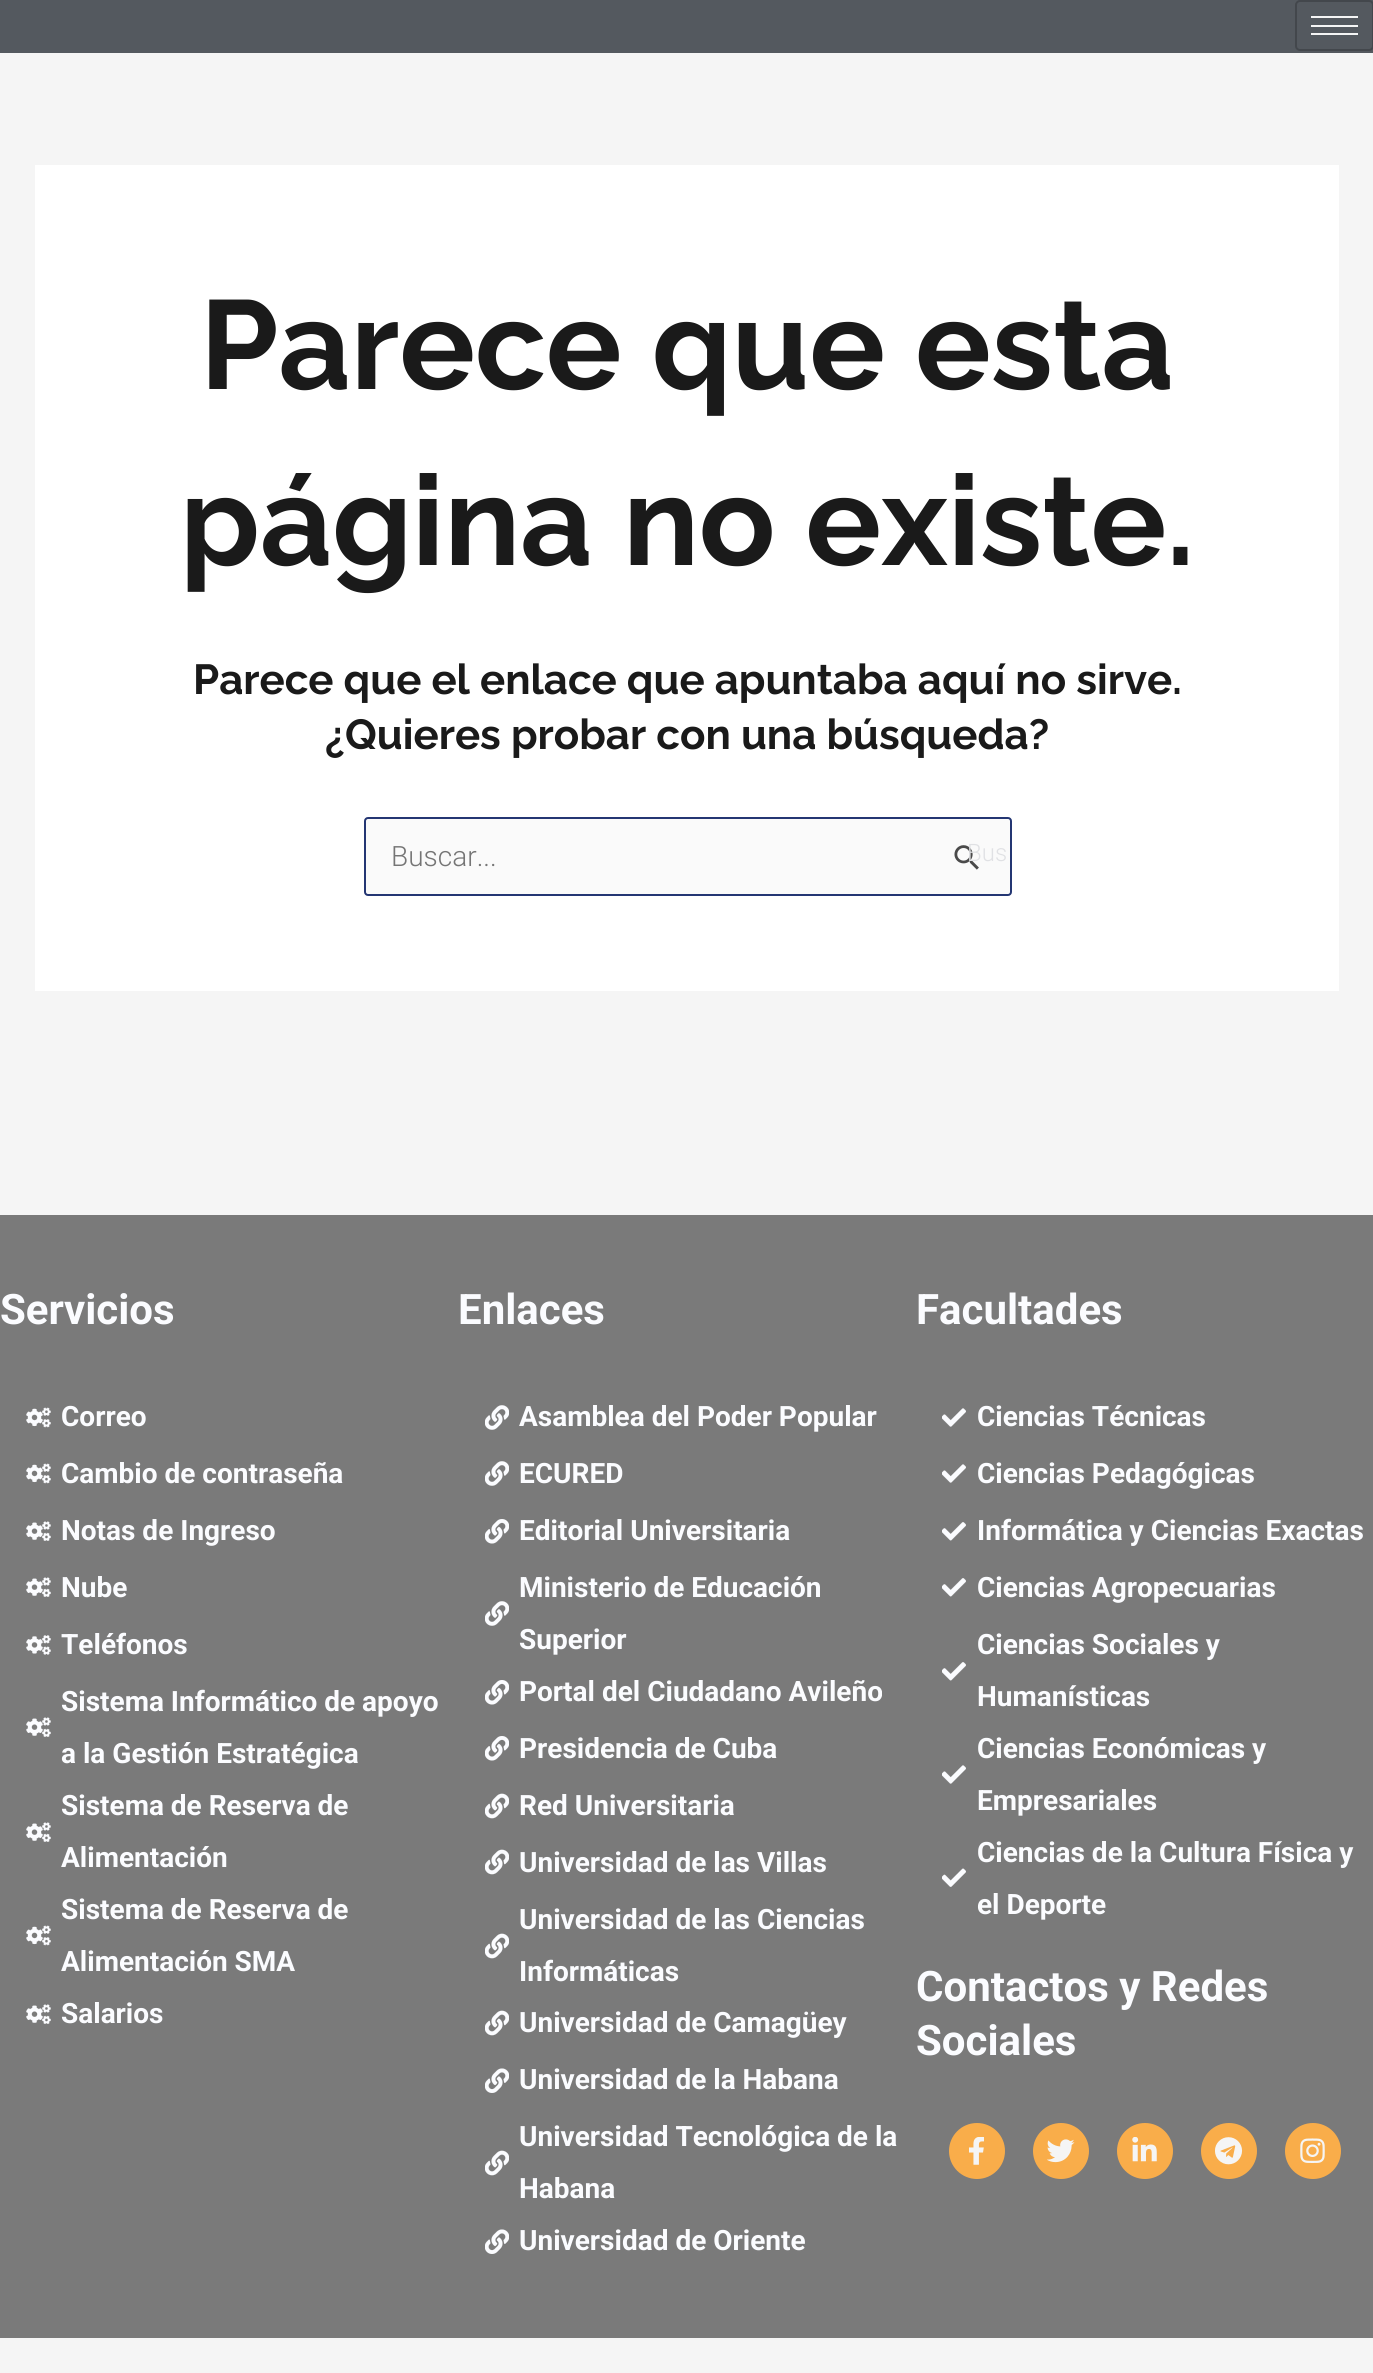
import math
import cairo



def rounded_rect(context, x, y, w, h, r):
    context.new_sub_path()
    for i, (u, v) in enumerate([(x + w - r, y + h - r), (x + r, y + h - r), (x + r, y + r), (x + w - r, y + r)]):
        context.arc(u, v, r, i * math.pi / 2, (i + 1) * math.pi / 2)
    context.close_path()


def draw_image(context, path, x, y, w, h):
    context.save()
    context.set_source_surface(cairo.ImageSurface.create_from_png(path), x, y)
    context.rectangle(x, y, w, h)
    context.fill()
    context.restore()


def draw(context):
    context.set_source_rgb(245 / 255, 245 / 255, 245 / 255)
    context.paint()
    context.set_source_rgb(84 / 255, 89 / 255, 95 / 255)
    context.rectangle(0, 0, 1373, 53)
    context.fill()
    rounded_rect(context, 1296, 1, 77, 49, 4)
    context.set_source_rgb(67 / 255, 71 / 255, 76 / 255)
    context.stroke()
    context.set_source_rgb(245 / 255, 245 / 255, 245 / 255)
    context.rectangle(1311, 16, 47, 2)
    context.fill()
    context.rectangle(1311, 25, 47, 2)
    context.fill()
    context.rectangle(1311, 33, 47, 2)
    context.fill()
    context.set_source_rgb(1, 1, 1)
    context.rectangle(35, 165, 1304, 826)
    context.fill()
    context.set_source_rgb(250 / 255, 250 / 255, 250 / 255)
    rounded_rect(context, 365, 818, 646, 77, 3)
    context.fill_preserve()
    context.set_source_rgb(36 / 255, 54 / 255, 115 / 255)
    context.stroke()
    draw_image(context, "images/1.png", 954, 845, 25, 25)
    context.set_source_rgb(122 / 255, 122 / 255, 122 / 255)
    context.rectangle(0, 1215, 1373, 1123)
    context.fill()
    draw_image(context, "images/2.png", 26, 1407, 25, 21)
    draw_image(context, "images/2.png", 26, 1463, 25, 21)
    draw_image(context, "images/3.png", 26, 1521, 25, 20)
    draw_image(context, "images/3.png", 26, 1577, 25, 20)
    draw_image(context, "images/4.png", 26, 1635, 25, 20)
    draw_image(context, "images/3.png", 26, 1717, 25, 20)
    draw_image(context, "images/3.png", 26, 1822, 25, 20)
    draw_image(context, "images/2.png", 26, 1925, 25, 21)
    draw_image(context, "images/3.png", 26, 2004, 25, 20)
    draw_image(context, "images/5.png", 485, 1405, 24, 25)
    draw_image(context, "images/5.png", 485, 1461, 24, 25)
    draw_image(context, "images/6.png", 485, 1519, 24, 25)
    draw_image(context, "images/5.png", 485, 1601, 24, 25)
    draw_image(context, "images/6.png", 485, 1680, 24, 25)
    draw_image(context, "images/6.png", 485, 1736, 24, 25)
    draw_image(context, "images/7.png", 485, 1793, 24, 26)
    draw_image(context, "images/7.png", 485, 1849, 24, 26)
    draw_image(context, "images/7.png", 485, 1933, 24, 26)
    draw_image(context, "images/7.png", 485, 2010, 24, 26)
    draw_image(context, "images/8.png", 485, 2068, 24, 25)
    draw_image(context, "images/7.png", 485, 2150, 24, 26)
    draw_image(context, "images/8.png", 485, 2229, 24, 25)
    draw_image(context, "images/9.png", 942, 1408, 24, 19)
    draw_image(context, "images/9.png", 942, 1464, 24, 19)
    draw_image(context, "images/10.png", 942, 1522, 24, 19)
    draw_image(context, "images/10.png", 942, 1578, 24, 19)
    draw_image(context, "images/10.png", 942, 1662, 24, 19)
    draw_image(context, "images/9.png", 942, 1765, 24, 19)
    draw_image(context, "images/11.png", 942, 1868, 24, 19)
    context.set_source_rgb(249 / 255, 173 / 255, 74 / 255)
    context.arc(977, 2151, 28, 0, 2 * math.pi)
    context.fill()
    draw_image(context, "images/12.png", 969, 2137, 15, 28)
    context.arc(1061, 2151, 28, 0, 2 * math.pi)
    context.fill()
    draw_image(context, "images/13.png", 1047, 2139, 28, 24)
    context.arc(1145, 2151, 28, 0, 2 * math.pi)
    context.fill()
    draw_image(context, "images/14.png", 1132, 2137, 25, 25)
    context.arc(1229, 2151, 28, 0, 2 * math.pi)
    context.fill()
    draw_image(context, "images/15.png", 1215, 2137, 28, 28)
    context.arc(1313, 2151, 28, 0, 2 * math.pi)
    context.fill()
    draw_image(context, "images/16.png", 1300, 2138, 25, 25)
    context.select_font_face("Raleway Thin")
    context.set_font_size(126)
    context.set_source_rgb(26 / 255, 26 / 255, 26 / 255)
    context.move_to(200, 389)
    context.show_text("Parece que esta")
    context.move_to(180, 565)
    context.show_text("página no existe.")
    context.set_font_size(42)
    context.move_to(193, 694)
    context.show_text("Parece que el enlace que apuntaba aquí no sirve.")
    context.move_to(325, 749)
    context.show_text("¿Quieres probar con una búsqueda?")
    context.select_font_face("Roboto Light")
    context.set_font_size(28)
    context.set_source_rgb(117 / 255, 117 / 255, 117 / 255)
    context.move_to(391, 866)
    context.show_text("Buscar...")
    context.set_font_size(24)
    context.set_source_rgb(224 / 255, 225 / 255, 228 / 255)
    context.move_to(967, 861)
    context.show_text("Bus")
    context.select_font_face("Roboto", cairo.FontSlant.NORMAL, cairo.FontWeight.BOLD)
    context.set_font_size(42)
    context.set_source_rgb(251 / 255, 252 / 255, 1)
    context.move_to(0, 1324)
    context.show_text("Servicios")
    context.set_font_size(28)
    context.move_to(61, 1426)
    context.show_text("Correo")
    context.move_to(61, 1483)
    context.show_text("Cambio de contraseña")
    context.move_to(61, 1540)
    context.show_text("Notas de Ingreso")
    context.move_to(61, 1597)
    context.show_text("Nube")
    context.move_to(61, 1654)
    context.show_text("Teléfonos")
    context.move_to(61, 1711)
    context.show_text("Sistema Informático de apoyo")
    context.move_to(61, 1763)
    context.show_text("a la Gestión Estratégica")
    context.move_to(61, 1815)
    context.show_text("Sistema de Reserva de")
    context.move_to(61, 1867)
    context.show_text("Alimentación")
    context.move_to(61, 1919)
    context.show_text("Sistema de Reserva de")
    context.move_to(61, 1971)
    context.show_text("Alimentación SMA")
    context.move_to(61, 2023)
    context.show_text("Salarios")
    context.set_font_size(42)
    context.move_to(458, 1324)
    context.show_text("Enlaces")
    context.set_font_size(28)
    context.move_to(519, 1426)
    context.show_text("Asamblea del Poder Popular")
    context.move_to(519, 1483)
    context.show_text("ECURED")
    context.move_to(519, 1540)
    context.show_text("Editorial Universitaria")
    context.move_to(519, 1597)
    context.show_text("Ministerio de Educación")
    context.move_to(519, 1649)
    context.show_text("Superior")
    context.move_to(519, 1701)
    context.show_text("Portal del Ciudadano Avileño")
    context.move_to(519, 1758)
    context.show_text("Presidencia de Cuba")
    context.move_to(519, 1815)
    context.show_text("Red Universitaria")
    context.move_to(519, 1872)
    context.show_text("Universidad de las Villas")
    context.move_to(519, 1929)
    context.show_text("Universidad de las Ciencias")
    context.move_to(519, 1981)
    context.show_text("Informáticas")
    context.move_to(519, 2032)
    context.show_text("Universidad de Camagüey")
    context.move_to(519, 2089)
    context.show_text("Universidad de la Habana")
    context.move_to(519, 2146)
    context.show_text("Universidad Tecnológica de la")
    context.move_to(519, 2198)
    context.show_text("Habana")
    context.move_to(519, 2250)
    context.show_text("Universidad de Oriente")
    context.set_font_size(42)
    context.move_to(916, 1324)
    context.show_text("Facultades")
    context.set_font_size(28)
    context.move_to(977, 1426)
    context.show_text("Ciencias Técnicas")
    context.move_to(977, 1483)
    context.show_text("Ciencias Pedagógicas")
    context.move_to(977, 1540)
    context.show_text("Informática y Ciencias Exactas")
    context.move_to(977, 1597)
    context.show_text("Ciencias Agropecuarias")
    context.move_to(977, 1654)
    context.show_text("Ciencias Sociales y")
    context.move_to(977, 1706)
    context.show_text("Humanísticas")
    context.move_to(977, 1758)
    context.show_text("Ciencias Económicas y")
    context.move_to(977, 1810)
    context.show_text("Empresariales")
    context.move_to(977, 1862)
    context.show_text("Ciencias de la Cultura Física y")
    context.move_to(977, 1914)
    context.show_text("el Deporte")
    context.set_font_size(42)
    context.move_to(916, 2001)
    context.show_text("Contactos y Redes")
    context.move_to(916, 2055)
    context.show_text("Sociales")


surface = cairo.ImageSurface(cairo.Format.RGB24, 1373, 2373)
context = cairo.Context(surface)
options = cairo.FontOptions()
options.set_hint_metrics(cairo.HintMetrics.OFF)
options.set_hint_style(cairo.HintStyle.NONE)
context.set_font_options(options)
context.set_miter_limit(4)
draw(context)
surface.write_to_png("out.png")
